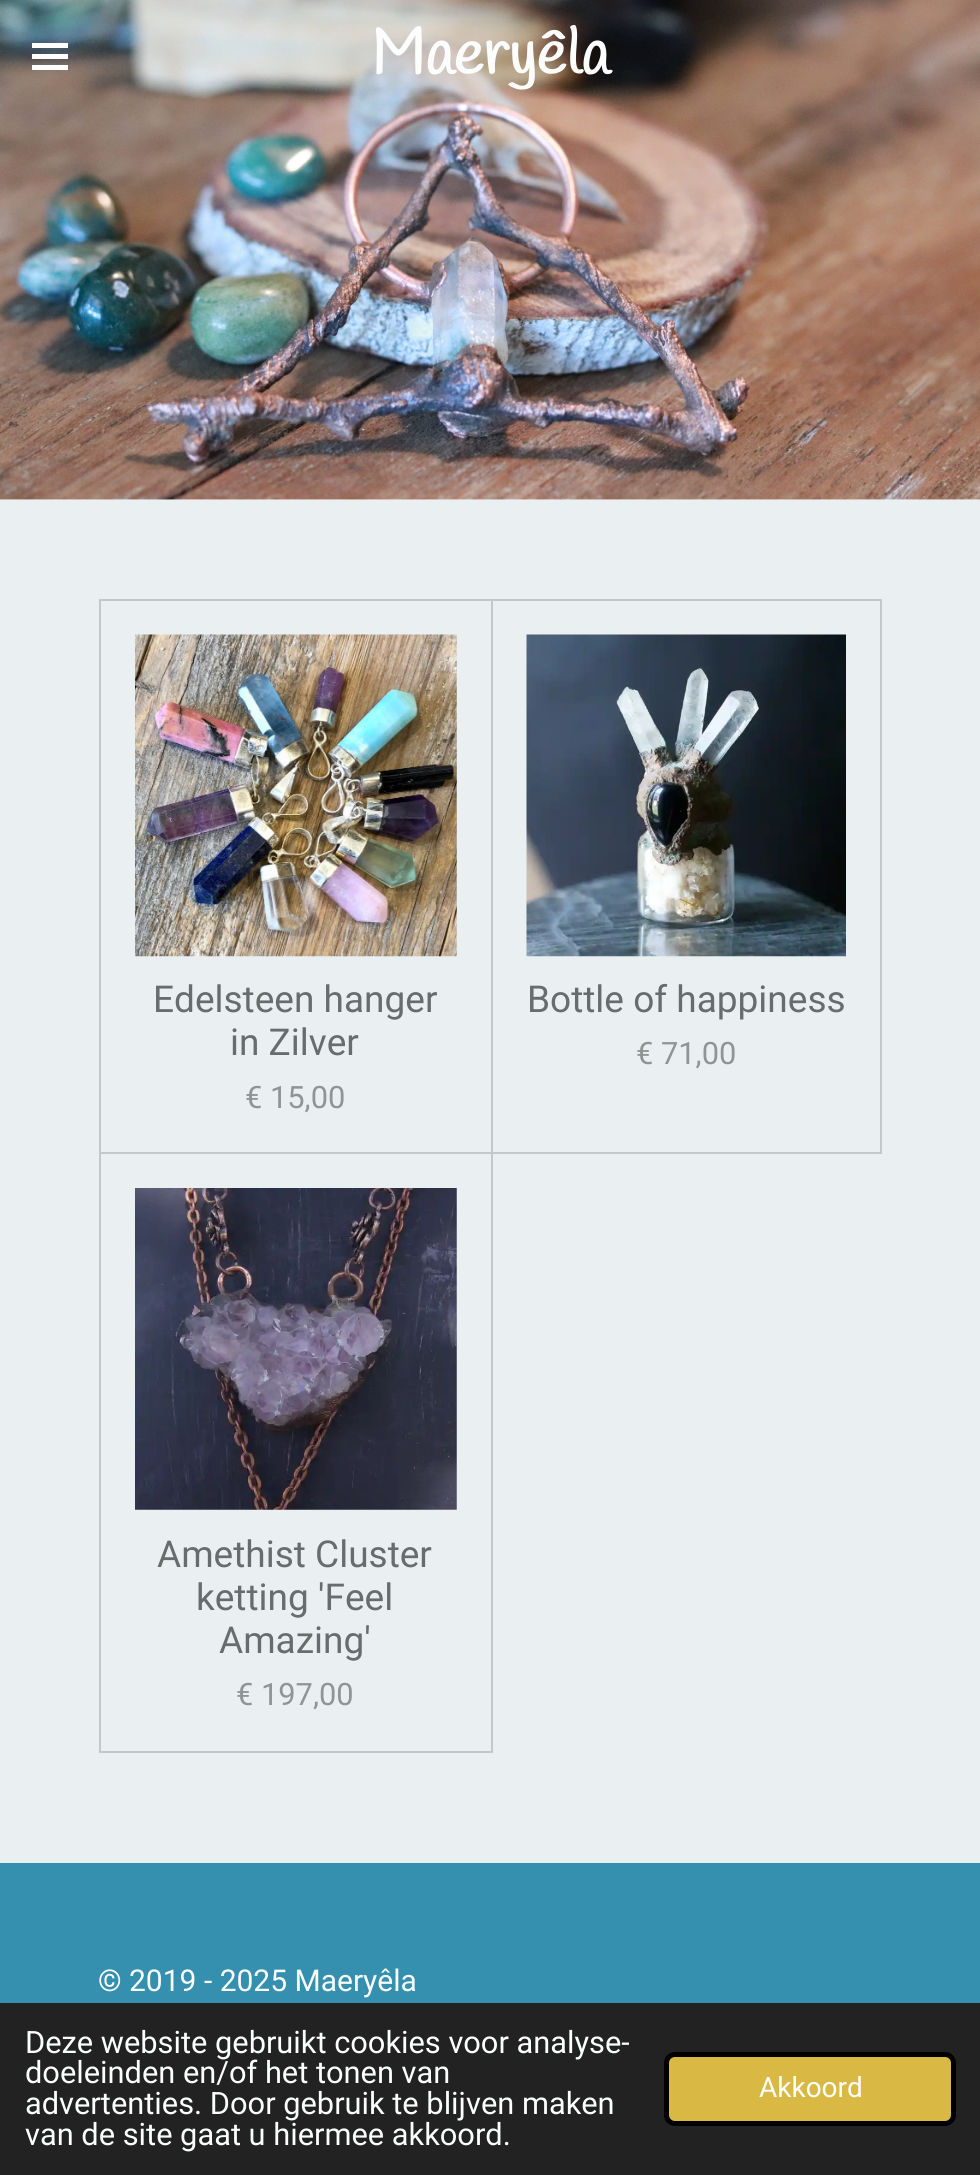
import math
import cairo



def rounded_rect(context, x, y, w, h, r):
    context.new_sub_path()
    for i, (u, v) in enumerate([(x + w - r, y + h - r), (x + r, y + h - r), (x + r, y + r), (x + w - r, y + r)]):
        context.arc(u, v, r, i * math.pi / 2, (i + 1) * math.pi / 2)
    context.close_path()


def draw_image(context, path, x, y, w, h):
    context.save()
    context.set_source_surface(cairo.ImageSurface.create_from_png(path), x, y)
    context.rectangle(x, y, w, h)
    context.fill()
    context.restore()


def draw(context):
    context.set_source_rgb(1, 1, 1)
    context.paint()
    draw_image(context, "images/1.png", 0, 0, 980, 500)
    context.set_source_rgb(1, 1, 1)
    context.rectangle(32, 54, 36, 5)
    context.fill()
    context.rectangle(32, 43, 36, 5)
    context.fill()
    context.rectangle(32, 65, 36, 5)
    context.fill()
    context.set_source_rgb(234 / 255, 240 / 255, 241 / 255)
    context.rectangle(0, 500, 980, 1363)
    context.fill()
    context.rectangle(100, 600, 392, 553)
    context.set_source_rgb(195 / 255, 200 / 255, 201 / 255)
    context.stroke()
    draw_image(context, "images/2.png", 135, 634, 322, 323)
    context.rectangle(492, 600, 389, 553)
    context.stroke()
    draw_image(context, "images/3.png", 526, 634, 320, 323)
    context.rectangle(100, 1153, 392, 599)
    context.stroke()
    draw_image(context, "images/4.png", 135, 1188, 322, 322)
    context.set_source_rgb(52 / 255, 144 / 255, 174 / 255)
    context.rectangle(0, 1863, 980, 140)
    context.fill()
    context.set_source_rgb(34 / 255, 34 / 255, 34 / 255)
    context.rectangle(0, 2003, 980, 172)
    context.fill()
    context.set_source_rgb(218 / 255, 184 / 255, 68 / 255)
    rounded_rect(context, 666.5, 2054.5, 287, 69, 8.5)
    context.fill_preserve()
    context.set_source_rgb(0, 0, 0)
    context.set_line_width(5)
    context.stroke()
    context.select_font_face("Handlee", cairo.FontSlant.NORMAL, cairo.FontWeight.BOLD)
    context.set_font_size(63)
    context.set_source_rgb(252 / 255, 254 / 255, 254 / 255)
    context.move_to(371, 74)
    context.show_text("Maeryêla")
    context.select_font_face("Roboto")
    context.set_font_size(37)
    context.set_source_rgb(105 / 255, 108 / 255, 108 / 255)
    context.move_to(153, 1012)
    context.show_text("Edelsteen hanger")
    context.move_to(230, 1055)
    context.show_text("in Zilver")
    context.set_font_size(30.8)
    context.set_source_rgb(144 / 255, 148 / 255, 148 / 255)
    context.move_to(245, 1108)
    context.show_text("€ 15,00")
    context.set_font_size(37)
    context.set_source_rgb(105 / 255, 108 / 255, 108 / 255)
    context.move_to(527, 1012)
    context.show_text("Bottle of happiness")
    context.set_font_size(30.8)
    context.set_source_rgb(144 / 255, 148 / 255, 148 / 255)
    context.move_to(636, 1064)
    context.show_text("€ 71,00")
    context.set_font_size(37)
    context.set_source_rgb(105 / 255, 108 / 255, 108 / 255)
    context.move_to(157, 1567)
    context.show_text("Amethist Cluster")
    context.move_to(196, 1610)
    context.show_text("ketting 'Feel")
    context.move_to(219, 1653)
    context.show_text("Amazing'")
    context.set_font_size(30.8)
    context.set_source_rgb(144 / 255, 148 / 255, 148 / 255)
    context.move_to(236, 1705)
    context.show_text("€ 197,00")
    context.set_font_size(30)
    context.set_source_rgb(252 / 255, 254 / 255, 254 / 255)
    context.move_to(98, 1991)
    context.show_text("© 2019 - 2025 Maeryêla")
    context.set_font_size(30.8)
    context.move_to(25, 2053)
    context.show_text("Deze website gebruikt cookies voor analyse-")
    context.move_to(25, 2083)
    context.show_text("doeleinden en/of het tonen van")
    context.move_to(25, 2114)
    context.show_text("advertenties. Door gebruik te blijven maken")
    context.move_to(25, 2145)
    context.show_text("van de site gaat u hiermee akkoord.")
    context.set_font_size(28)
    context.move_to(759, 2097)
    context.show_text("Akkoord")


surface = cairo.ImageSurface(cairo.Format.RGB24, 980, 2175)
context = cairo.Context(surface)
options = cairo.FontOptions()
options.set_hint_metrics(cairo.HintMetrics.OFF)
options.set_hint_style(cairo.HintStyle.NONE)
context.set_font_options(options)
context.set_miter_limit(4)
draw(context)
surface.write_to_png("out.png")
